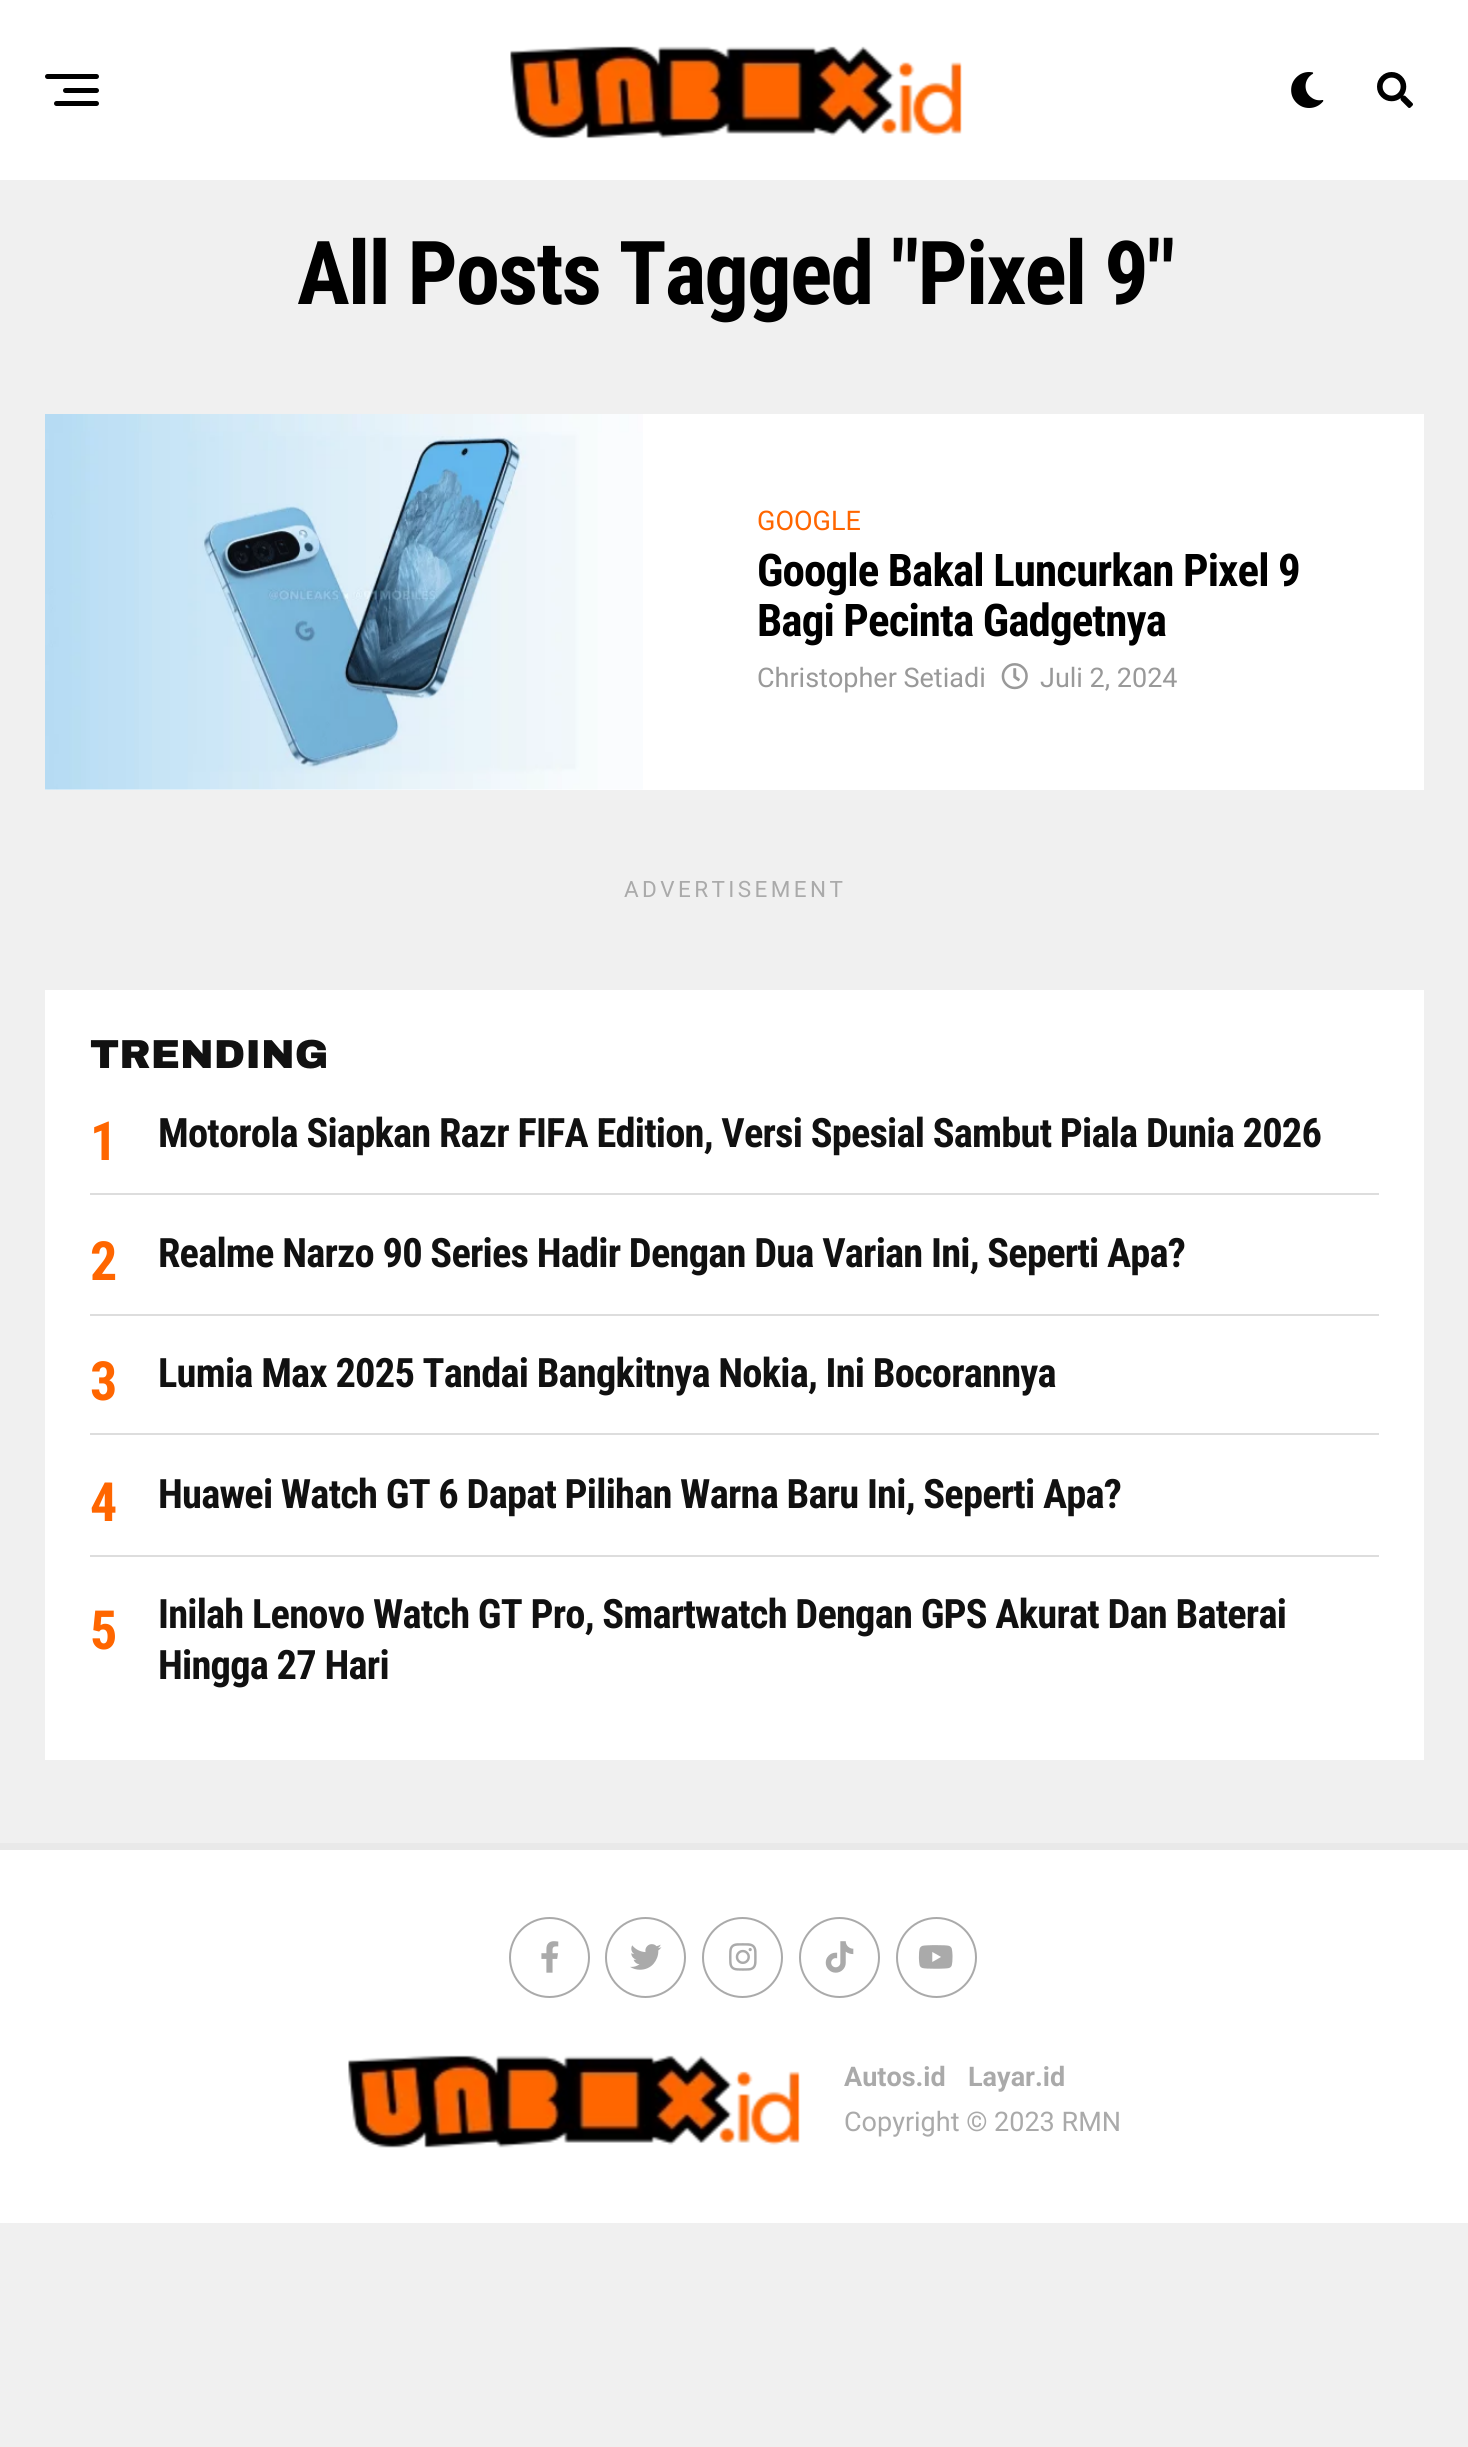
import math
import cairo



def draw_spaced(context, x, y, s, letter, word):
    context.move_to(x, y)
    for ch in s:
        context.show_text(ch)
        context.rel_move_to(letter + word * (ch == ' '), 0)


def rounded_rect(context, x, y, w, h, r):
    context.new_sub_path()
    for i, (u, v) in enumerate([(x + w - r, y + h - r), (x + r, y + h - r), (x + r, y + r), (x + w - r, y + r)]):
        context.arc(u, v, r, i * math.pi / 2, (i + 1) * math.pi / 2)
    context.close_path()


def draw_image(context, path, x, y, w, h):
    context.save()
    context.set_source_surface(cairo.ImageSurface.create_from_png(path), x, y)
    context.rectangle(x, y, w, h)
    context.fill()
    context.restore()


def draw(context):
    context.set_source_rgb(240 / 255, 240 / 255, 240 / 255)
    context.paint()
    context.set_source_rgb(1, 1, 1)
    context.rectangle(0, 0, 1468, 180)
    context.fill()
    context.set_source_rgb(0, 0, 0)
    rounded_rect(context, 45, 74, 54, 5, 2.5)
    context.fill()
    rounded_rect(context, 63, 88, 36, 5, 2.5)
    context.fill()
    rounded_rect(context, 54, 101, 45, 5, 2.5)
    context.fill()
    draw_image(context, "images/1.png", 510, 46, 452, 93)
    draw_image(context, "images/2.png", 1291, 72, 33, 36)
    draw_image(context, "images/3.png", 1377, 72, 36, 36)
    context.set_source_rgb(1, 1, 1)
    context.rectangle(45, 414, 1379, 376)
    context.fill()
    draw_image(context, "images/4.png", 45, 414, 598, 376)
    draw_image(context, "images/5.png", 1001, 663, 27, 27)
    context.rectangle(45, 990, 1379, 770)
    context.fill()
    context.set_source_rgb(221 / 255, 221 / 255, 221 / 255)
    context.rectangle(90, 1193, 1289, 2)
    context.fill()
    context.rectangle(90, 1314, 1289, 2)
    context.fill()
    context.rectangle(90, 1433, 1289, 2)
    context.fill()
    context.rectangle(90, 1555, 1289, 2)
    context.fill()
    context.set_source_rgb(1, 1, 1)
    context.rectangle(0, 1850, 1468, 373)
    context.fill()
    context.set_source_rgb(233 / 255, 233 / 255, 233 / 255)
    context.rectangle(0, 1843, 1468, 7)
    context.fill()
    context.arc(549.5, 1957.5, 39.5, 0, 2 * math.pi)
    context.set_source_rgb(170 / 255, 170 / 255, 170 / 255)
    context.stroke()
    draw_image(context, "images/6.png", 541, 1941, 18, 32)
    context.arc(645.5, 1957.5, 39.5, 0, 2 * math.pi)
    context.stroke()
    draw_image(context, "images/7.png", 630, 1944, 32, 26)
    context.arc(742.5, 1957.5, 39.5, 0, 2 * math.pi)
    context.stroke()
    draw_image(context, "images/8.png", 729, 1943, 28, 28)
    context.arc(839.5, 1957.5, 39.5, 0, 2 * math.pi)
    context.stroke()
    draw_image(context, "images/9.png", 825, 1941, 29, 32)
    context.arc(936.5, 1957.5, 39.5, 0, 2 * math.pi)
    context.stroke()
    draw_image(context, "images/10.png", 918, 1945, 35, 24)
    draw_image(context, "images/11.png", 348, 2055, 452, 93)
    context.select_font_face("Roboto Condensed", cairo.FontSlant.NORMAL, cairo.FontWeight.BOLD)
    context.set_font_size(88.25)
    context.set_source_rgb(0, 0, 0)
    draw_spaced(context, 297, 304, "All Posts Tagged \"Pixel 9\"", -1.75, 0)
    context.select_font_face("Roboto")
    context.set_font_size(27)
    context.set_source_rgb(1, 102 / 255, 0)
    context.move_to(757, 530)
    context.show_text("GOOGLE")
    context.select_font_face("Roboto Condensed", cairo.FontSlant.NORMAL, cairo.FontWeight.BOLD)
    context.set_font_size(45)
    context.set_source_rgb(0, 0, 0)
    draw_spaced(context, 757, 586, "Google Bakal Luncurkan Pixel 9", -0.9, 0)
    draw_spaced(context, 757, 636, "Bagi Pecinta Gadgetnya", -0.9, 0)
    context.select_font_face("Roboto")
    context.set_font_size(27)
    context.set_source_rgb(153 / 255, 153 / 255, 153 / 255)
    context.move_to(757, 687)
    context.show_text("Christopher Setiadi")
    context.move_to(1040, 687)
    context.show_text("Juli 2, 2024")
    context.set_font_size(22.5)
    context.set_source_rgb(170 / 255, 170 / 255, 170 / 255)
    draw_spaced(context, 624, 897, "ADVERTISEMENT", 3.4, 0)
    context.select_font_face("Archivo Black Black")
    context.set_font_size(40.5)
    context.set_source_rgb(17 / 255, 17 / 255, 17 / 255)
    context.move_to(90, 1068)
    context.show_text("TRENDING")
    context.select_font_face("Roboto Condensed", cairo.FontSlant.NORMAL, cairo.FontWeight.BOLD)
    context.set_font_size(54)
    context.set_source_rgb(1, 102 / 255, 0)
    context.move_to(90, 1160)
    context.show_text("1")
    context.set_font_size(40.5)
    context.set_source_rgb(17 / 255, 17 / 255, 17 / 255)
    draw_spaced(context, 158, 1147, "Motorola Siapkan Razr FIFA Edition, Versi Spesial Sambut Piala Dunia 2026", -0.8, 0)
    context.set_font_size(54)
    context.set_source_rgb(1, 102 / 255, 0)
    context.move_to(90, 1280)
    context.show_text("2")
    context.set_font_size(40.5)
    context.set_source_rgb(17 / 255, 17 / 255, 17 / 255)
    draw_spaced(context, 158, 1267, "Realme Narzo 90 Series Hadir Dengan Dua Varian Ini, Seperti Apa?", -0.8, 0)
    context.set_font_size(54)
    context.set_source_rgb(1, 102 / 255, 0)
    context.move_to(90, 1400)
    context.show_text("3")
    context.set_font_size(40.5)
    context.set_source_rgb(17 / 255, 17 / 255, 17 / 255)
    draw_spaced(context, 158, 1387, "Lumia Max 2025 Tandai Bangkitnya Nokia, Ini Bocorannya", -0.8, 0)
    context.set_font_size(54)
    context.set_source_rgb(1, 102 / 255, 0)
    context.move_to(90, 1521)
    context.show_text("4")
    context.set_font_size(40.5)
    context.set_source_rgb(17 / 255, 17 / 255, 17 / 255)
    draw_spaced(context, 158, 1508, "Huawei Watch GT 6 Dapat Pilihan Warna Baru Ini, Seperti Apa?", -0.8, 0)
    context.set_font_size(54)
    context.set_source_rgb(1, 102 / 255, 0)
    context.move_to(90, 1649)
    context.show_text("5")
    context.set_font_size(40.5)
    context.set_source_rgb(17 / 255, 17 / 255, 17 / 255)
    draw_spaced(context, 158, 1628, "Inilah Lenovo Watch GT Pro, Smartwatch Dengan GPS Akurat Dan Baterai", -0.8, 0)
    draw_spaced(context, 158, 1679, "Hingga 27 Hari", -0.8, 0)
    context.select_font_face("Roboto", cairo.FontSlant.NORMAL, cairo.FontWeight.BOLD)
    context.set_font_size(27)
    context.set_source_rgb(170 / 255, 170 / 255, 170 / 255)
    context.move_to(844, 2086)
    context.show_text("Autos.id")
    context.move_to(968, 2086)
    context.show_text("Layar.id")
    context.select_font_face("Roboto")
    context.move_to(844, 2131)
    context.show_text("Copyright © 2023 RMN")


surface = cairo.ImageSurface(cairo.Format.RGB24, 1468, 2447)
context = cairo.Context(surface)
options = cairo.FontOptions()
options.set_hint_metrics(cairo.HintMetrics.OFF)
options.set_hint_style(cairo.HintStyle.NONE)
context.set_font_options(options)
context.set_miter_limit(4)
draw(context)
surface.write_to_png("out.png")
